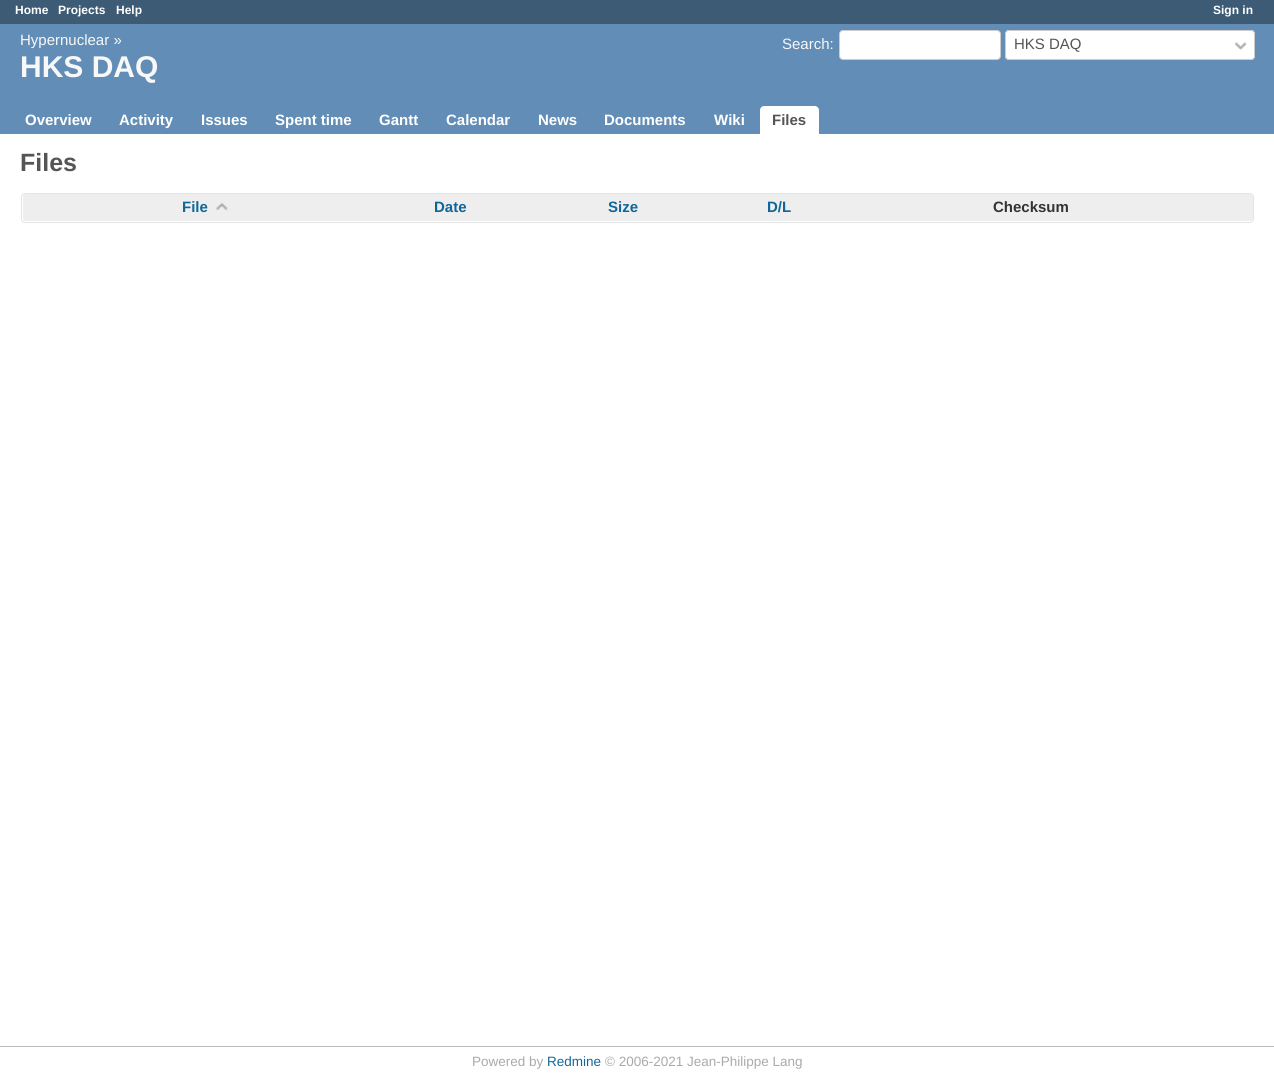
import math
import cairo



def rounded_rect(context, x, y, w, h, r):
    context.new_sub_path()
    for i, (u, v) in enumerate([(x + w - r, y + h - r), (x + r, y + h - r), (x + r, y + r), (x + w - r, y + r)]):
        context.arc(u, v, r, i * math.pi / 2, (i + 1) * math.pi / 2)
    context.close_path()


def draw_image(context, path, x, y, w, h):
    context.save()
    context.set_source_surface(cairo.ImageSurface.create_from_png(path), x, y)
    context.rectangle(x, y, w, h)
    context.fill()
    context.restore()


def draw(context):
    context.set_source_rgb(1, 1, 1)
    context.paint()
    context.set_source_rgb(62 / 255, 91 / 255, 118 / 255)
    context.rectangle(0, 0, 1274, 24)
    context.fill()
    context.set_source_rgb(98 / 255, 141 / 255, 182 / 255)
    context.rectangle(0, 24, 1274, 110)
    context.fill()
    context.set_source_rgb(1, 1, 1)
    rounded_rect(context, 839.5, 30.5, 161, 29, 3.5)
    context.fill_preserve()
    context.set_source_rgb(204 / 255, 204 / 255, 204 / 255)
    context.set_line_width(1)
    context.stroke()
    context.set_source_rgb(1, 1, 1)
    rounded_rect(context, 1005, 30, 250, 30, 4)
    context.fill()
    draw_image(context, "images/1.png", 1235, 42, 12, 9)
    rounded_rect(context, 1005.5, 30.5, 249, 29, 3.5)
    context.set_source_rgb(204 / 255, 204 / 255, 204 / 255)
    context.stroke()
    context.set_source_rgb(1, 1, 1)
    context.new_path()
    context.move_to(764, 106)
    context.line_to(815, 106)
    context.curve_to(817, 106, 819, 108, 819, 110)
    context.line_to(819, 134)
    context.line_to(760, 134)
    context.line_to(760, 110)
    context.curve_to(760, 108, 762, 106, 764, 106)
    context.close_path()
    context.fill()
    rounded_rect(context, 21.5, 193.5, 1232, 29, 3.5)
    context.set_source_rgb(228 / 255, 228 / 255, 228 / 255)
    context.stroke()
    context.set_source_rgb(238 / 255, 238 / 255, 238 / 255)
    context.new_path()
    context.move_to(25.5, 194)
    context.line_to(361, 194)
    context.line_to(361, 221)
    context.line_to(25.5, 221)
    context.curve_to(24, 221, 23, 220, 23, 218.5)
    context.line_to(23, 196.5)
    context.curve_to(23, 195, 24, 194, 25.5, 194)
    context.close_path()
    context.fill()
    draw_image(context, "images/2.png", 216, 202, 12, 9)
    context.rectangle(361, 194, 849, 27)
    context.fill()
    context.new_path()
    context.move_to(1210, 194)
    context.line_to(1250.5, 194)
    context.curve_to(1252, 194, 1253, 195, 1253, 196.5)
    context.line_to(1253, 218.5)
    context.curve_to(1253, 220, 1252, 221, 1250.5, 221)
    context.line_to(1210, 221)
    context.close_path()
    context.fill()
    context.set_source_rgb(187 / 255, 187 / 255, 187 / 255)
    context.rectangle(0, 1046, 1274, 1)
    context.fill()
    context.select_font_face("Liberation Sans", cairo.FontSlant.NORMAL, cairo.FontWeight.BOLD)
    context.set_font_size(12)
    context.set_source_rgb(1, 1, 1)
    context.move_to(15, 14)
    context.show_text("Home")
    context.move_to(58, 14)
    context.show_text("Projects")
    context.move_to(116, 14)
    context.show_text("Help")
    context.move_to(1213, 14)
    context.show_text("Sign in")
    context.select_font_face("Liberation Sans")
    context.set_font_size(15)
    context.set_source_rgb(248 / 255, 248 / 255, 248 / 255)
    context.move_to(20, 45)
    context.show_text("Hypernuclear »")
    context.select_font_face("Liberation Sans", cairo.FontSlant.NORMAL, cairo.FontWeight.BOLD)
    context.set_font_size(30)
    context.move_to(20, 77)
    context.show_text("HKS DAQ")
    context.select_font_face("Liberation Sans")
    context.set_font_size(15)
    context.move_to(782, 49)
    context.show_text("Search:")
    context.set_source_rgb(85 / 255, 85 / 255, 85 / 255)
    context.move_to(1014, 49)
    context.show_text("HKS DAQ")
    context.select_font_face("Liberation Sans", cairo.FontSlant.NORMAL, cairo.FontWeight.BOLD)
    context.set_source_rgb(1, 1, 1)
    context.move_to(25, 125)
    context.show_text("Overview")
    context.move_to(119, 125)
    context.show_text("Activity")
    context.move_to(201, 125)
    context.show_text("Issues")
    context.move_to(275, 125)
    context.show_text("Spent time")
    context.move_to(379, 125)
    context.show_text("Gantt")
    context.move_to(446, 125)
    context.show_text("Calendar")
    context.move_to(538, 125)
    context.show_text("News")
    context.move_to(604, 125)
    context.show_text("Documents")
    context.move_to(714, 125)
    context.show_text("Wiki")
    context.set_source_rgb(85 / 255, 85 / 255, 85 / 255)
    context.move_to(772, 125)
    context.show_text("Files")
    context.set_font_size(25)
    context.move_to(20, 171)
    context.show_text("Files")
    context.set_font_size(15)
    context.set_source_rgb(17 / 255, 102 / 255, 153 / 255)
    context.move_to(182, 212)
    context.show_text("File")
    context.move_to(434, 212)
    context.show_text("Date")
    context.move_to(608, 212)
    context.show_text("Size")
    context.move_to(767, 212)
    context.show_text("D/L")
    context.set_source_rgb(51 / 255, 51 / 255, 51 / 255)
    context.move_to(993, 212)
    context.show_text("Checksum")
    context.select_font_face("Liberation Sans")
    context.set_font_size(13.5)
    context.set_source_rgb(170 / 255, 170 / 255, 170 / 255)
    context.move_to(472, 1066)
    context.show_text("Powered by")
    context.set_source_rgb(17 / 255, 102 / 255, 153 / 255)
    context.move_to(547, 1066)
    context.show_text("Redmine")
    context.set_source_rgb(170 / 255, 170 / 255, 170 / 255)
    context.move_to(605, 1066)
    context.show_text("© 2006-2021 Jean-Philippe Lang")


surface = cairo.ImageSurface(cairo.Format.RGB24, 1274, 1075)
context = cairo.Context(surface)
options = cairo.FontOptions()
options.set_hint_metrics(cairo.HintMetrics.OFF)
options.set_hint_style(cairo.HintStyle.NONE)
context.set_font_options(options)
context.set_miter_limit(4)
draw(context)
surface.write_to_png("out.png")
